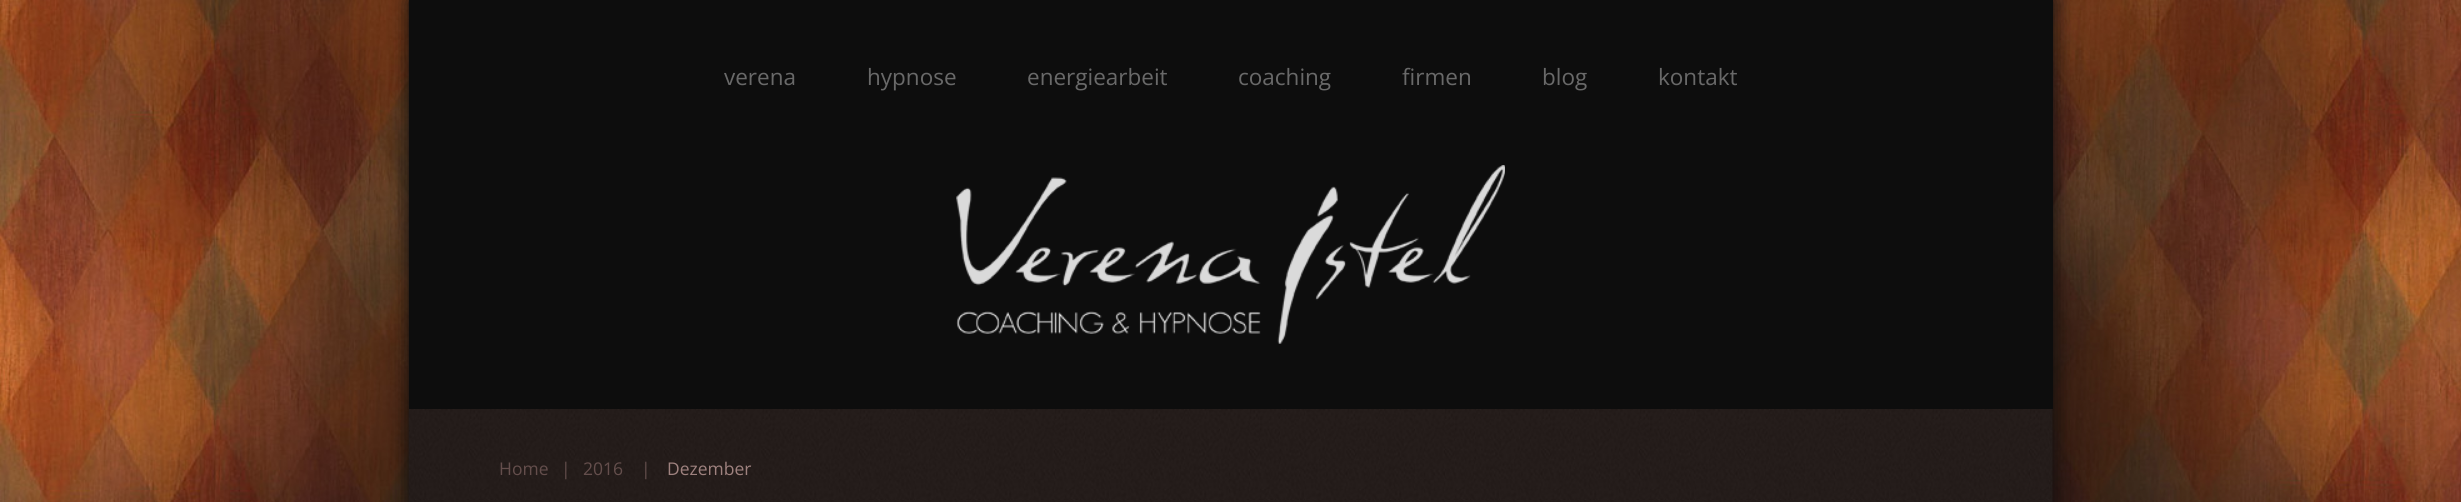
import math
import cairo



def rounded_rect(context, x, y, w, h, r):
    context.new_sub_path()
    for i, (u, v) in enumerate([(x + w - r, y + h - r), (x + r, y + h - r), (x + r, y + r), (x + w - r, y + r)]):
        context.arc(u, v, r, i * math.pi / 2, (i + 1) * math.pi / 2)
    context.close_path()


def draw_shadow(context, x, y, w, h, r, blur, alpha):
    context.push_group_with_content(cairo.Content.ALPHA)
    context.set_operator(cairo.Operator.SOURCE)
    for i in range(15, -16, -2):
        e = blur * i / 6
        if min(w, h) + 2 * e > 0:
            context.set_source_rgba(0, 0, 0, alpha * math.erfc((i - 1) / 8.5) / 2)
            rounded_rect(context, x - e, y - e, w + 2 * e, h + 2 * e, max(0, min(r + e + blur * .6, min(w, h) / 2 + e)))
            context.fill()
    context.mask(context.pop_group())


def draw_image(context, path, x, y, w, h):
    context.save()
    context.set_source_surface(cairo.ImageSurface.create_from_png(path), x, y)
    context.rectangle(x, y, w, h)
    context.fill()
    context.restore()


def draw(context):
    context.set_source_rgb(1, 1, 1)
    context.paint()
    draw_image(context, "images/1.png", 0, 0, 409, 502)
    draw_image(context, "images/5.png", 2052, 0, 409, 502)
    context.set_source_rgb(13 / 255, 13 / 255, 13 / 255)
    draw_shadow(context, 409, 0, 1644, 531, 0, 9.5, 1)
    draw_image(context, "images/2.png", 408, 0, 1645, 502)
    context.set_source_rgb(13 / 255, 13 / 255, 13 / 255)
    context.rectangle(409, 0, 1644, 409)
    context.fill()
    draw_image(context, "images/3.png", 956, 165, 549, 179)
    draw_image(context, "images/4.png", 415, 409, 1634, 91)
    context.select_font_face("Open Sans")
    context.set_font_size(22.5)
    context.set_source_rgb(105 / 255, 105 / 255, 105 / 255)
    context.move_to(724, 85)
    context.show_text("verena")
    context.move_to(867, 85)
    context.show_text("hypnose")
    context.move_to(1027, 85)
    context.show_text("energiearbeit")
    context.move_to(1238, 85)
    context.show_text("coaching")
    context.move_to(1402, 85)
    context.show_text("firmen")
    context.move_to(1542, 85)
    context.show_text("blog")
    context.move_to(1658, 85)
    context.show_text("kontakt")
    context.set_font_size(17.5)
    context.set_source_rgb(100 / 255, 78 / 255, 76 / 255)
    context.move_to(499, 475)
    context.show_text("Home")
    context.move_to(561, 475)
    context.show_text("|")
    context.move_to(583, 475)
    context.show_text("2016")
    context.move_to(641, 475)
    context.show_text("|")
    context.set_source_rgb(159 / 255, 130 / 255, 127 / 255)
    context.move_to(667, 475)
    context.show_text("Dezember")


surface = cairo.ImageSurface(cairo.Format.RGB24, 2461, 502)
context = cairo.Context(surface)
options = cairo.FontOptions()
options.set_hint_metrics(cairo.HintMetrics.OFF)
options.set_hint_style(cairo.HintStyle.NONE)
context.set_font_options(options)
context.set_miter_limit(4)
draw(context)
surface.write_to_png("out.png")
